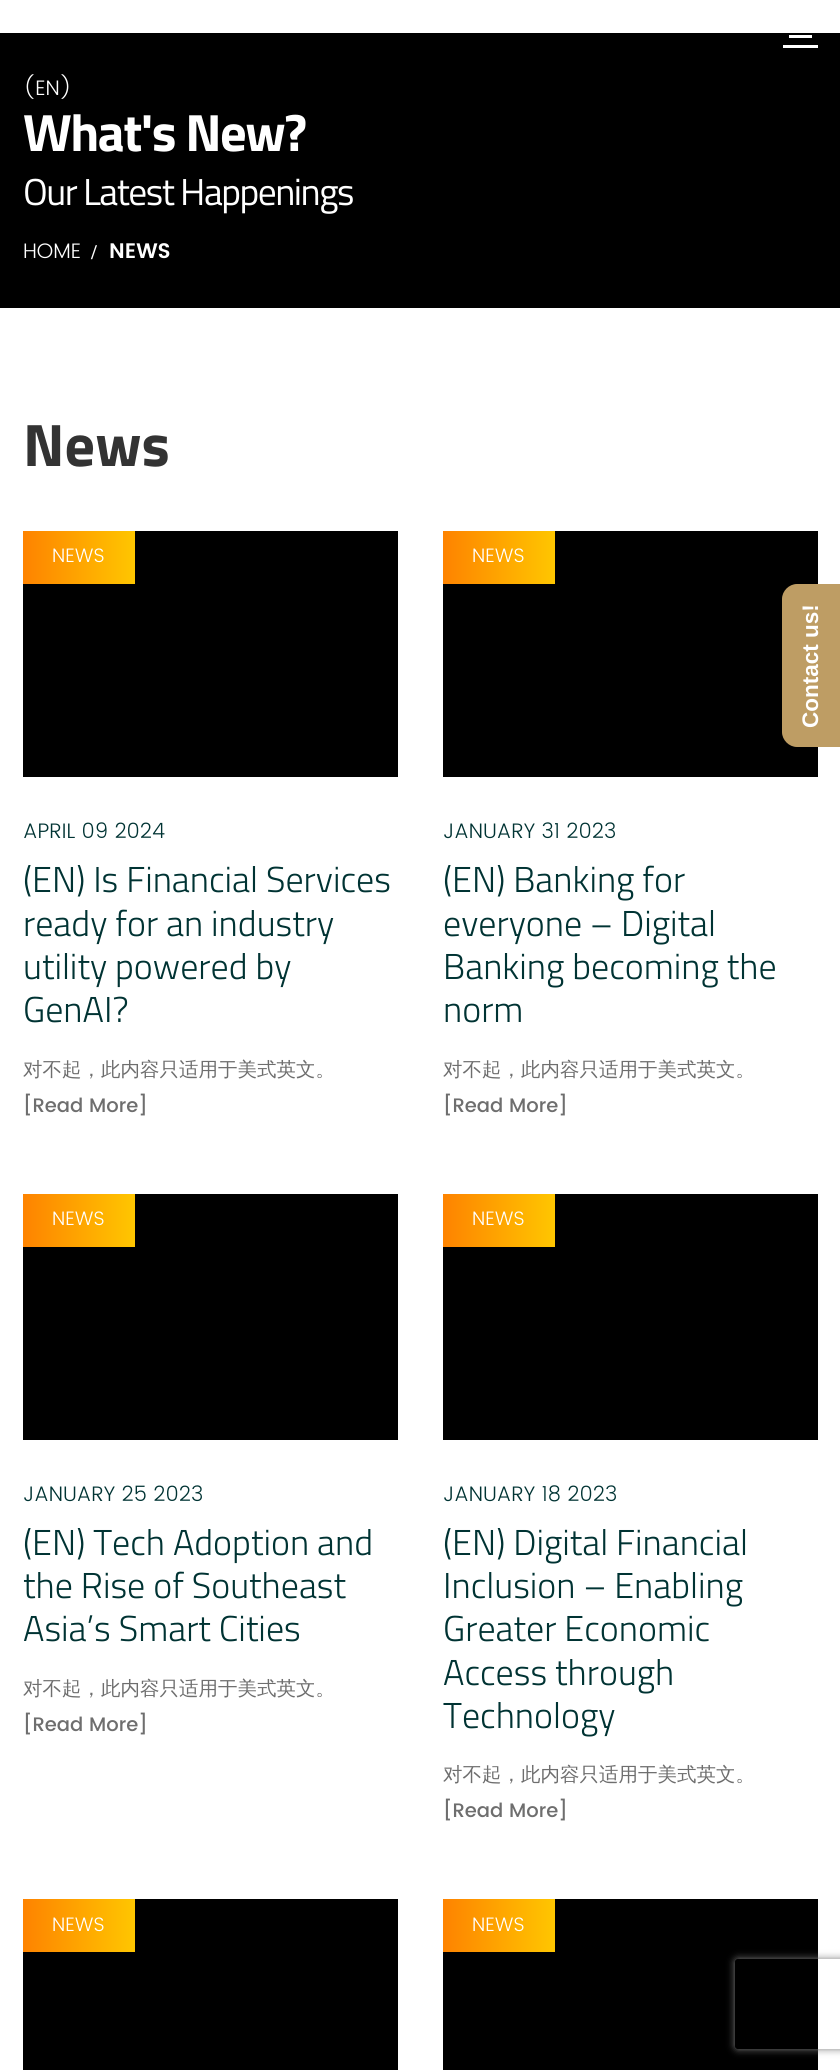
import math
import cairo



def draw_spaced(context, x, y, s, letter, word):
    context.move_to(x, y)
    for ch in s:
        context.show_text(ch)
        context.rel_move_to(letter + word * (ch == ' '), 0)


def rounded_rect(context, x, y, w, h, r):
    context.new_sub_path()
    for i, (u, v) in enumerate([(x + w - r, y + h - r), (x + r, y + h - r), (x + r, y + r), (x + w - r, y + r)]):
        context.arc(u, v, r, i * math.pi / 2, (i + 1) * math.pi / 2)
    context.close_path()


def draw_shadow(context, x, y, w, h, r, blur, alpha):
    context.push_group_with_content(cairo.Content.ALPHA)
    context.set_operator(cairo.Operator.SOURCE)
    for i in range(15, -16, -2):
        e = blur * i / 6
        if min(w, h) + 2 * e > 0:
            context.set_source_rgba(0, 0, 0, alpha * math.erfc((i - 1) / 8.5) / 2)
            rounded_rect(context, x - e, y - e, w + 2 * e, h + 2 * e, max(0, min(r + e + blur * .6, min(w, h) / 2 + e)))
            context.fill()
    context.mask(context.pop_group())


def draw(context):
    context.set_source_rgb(1, 1, 1)
    context.paint()
    context.set_source_rgb(0, 0, 0)
    context.rectangle(0, 33, 840, 275)
    context.fill()
    context.set_source_rgb(1, 1, 1)
    context.rectangle(789, 35, 23, 3)
    context.fill()
    context.rectangle(783, 45, 35, 3)
    context.fill()
    context.set_source_rgb(0, 0, 0)
    context.rectangle(23, 531, 375, 246)
    context.fill()
    gradient = cairo.LinearGradient(23, 557, 135, 557)
    gradient.add_color_stop_rgba(0, 254 / 255, 131 / 255, 0, 1)
    gradient.add_color_stop_rgba(1, 1, 198 / 255, 0, 1)
    context.set_source(gradient)
    context.rectangle(23, 531, 112, 53)
    context.fill()
    context.set_source_rgb(0, 0, 0)
    context.rectangle(443, 531, 375, 246)
    context.fill()
    gradient = cairo.LinearGradient(443, 557, 555, 557)
    gradient.add_color_stop_rgba(0, 254 / 255, 131 / 255, 0, 1)
    gradient.add_color_stop_rgba(1, 1, 198 / 255, 0, 1)
    context.set_source(gradient)
    context.rectangle(443, 531, 112, 53)
    context.fill()
    context.set_source_rgb(0, 0, 0)
    context.rectangle(23, 1194, 375, 246)
    context.fill()
    gradient = cairo.LinearGradient(23, 1220, 135, 1220)
    gradient.add_color_stop_rgba(0, 254 / 255, 131 / 255, 0, 1)
    gradient.add_color_stop_rgba(1, 1, 198 / 255, 0, 1)
    context.set_source(gradient)
    context.rectangle(23, 1194, 112, 53)
    context.fill()
    context.set_source_rgb(0, 0, 0)
    context.rectangle(443, 1194, 375, 246)
    context.fill()
    gradient = cairo.LinearGradient(443, 1220, 555, 1220)
    gradient.add_color_stop_rgba(0, 254 / 255, 131 / 255, 0, 1)
    gradient.add_color_stop_rgba(1, 1, 198 / 255, 0, 1)
    context.set_source(gradient)
    context.rectangle(443, 1194, 112, 53)
    context.fill()
    context.set_source_rgb(0, 0, 0)
    context.rectangle(23, 1899, 375, 171)
    context.fill()
    gradient = cairo.LinearGradient(23, 1925, 135, 1925)
    gradient.add_color_stop_rgba(0, 254 / 255, 131 / 255, 0, 1)
    gradient.add_color_stop_rgba(1, 1, 198 / 255, 0, 1)
    context.set_source(gradient)
    context.rectangle(23, 1899, 112, 53)
    context.fill()
    context.set_source_rgb(0, 0, 0)
    context.rectangle(443, 1899, 375, 171)
    context.fill()
    gradient = cairo.LinearGradient(443, 1925, 555, 1925)
    gradient.add_color_stop_rgba(0, 254 / 255, 131 / 255, 0, 1)
    gradient.add_color_stop_rgba(1, 1, 198 / 255, 0, 1)
    context.set_source(gradient)
    context.rectangle(443, 1899, 112, 53)
    context.fill()
    context.set_source_rgb(190 / 255, 157 / 255, 100 / 255)
    context.new_path()
    context.move_to(782, 732)
    context.line_to(782, 599)
    context.curve_to(782, 591, 789, 584, 797, 584)
    context.line_to(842, 584)
    context.line_to(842, 747)
    context.line_to(797, 747)
    context.curve_to(789, 747, 782, 740, 782, 732)
    context.close_path()
    context.fill()
    context.save()
    context.set_fill_rule(cairo.FillRule.EVEN_ODD)
    context.new_path()
    context.move_to(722, 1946)
    context.line_to(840, 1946)
    context.line_to(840, 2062)
    context.line_to(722, 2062)
    context.close_path()
    context.move_to(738, 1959)
    context.line_to(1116, 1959)
    context.curve_to(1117.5, 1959, 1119, 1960.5, 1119, 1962)
    context.line_to(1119, 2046)
    context.curve_to(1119, 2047.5, 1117.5, 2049, 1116, 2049)
    context.line_to(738, 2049)
    context.curve_to(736.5, 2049, 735, 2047.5, 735, 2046)
    context.line_to(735, 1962)
    context.curve_to(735, 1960.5, 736.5, 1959, 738, 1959)
    context.close_path()
    context.clip()
    context.set_source_rgb(128 / 255, 128 / 255, 128 / 255)
    draw_shadow(context, 735, 1959, 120, 90, 3, 4, 1)
    context.restore()
    context.select_font_face("Poppins Light")
    context.set_font_size(21)
    context.set_source_rgb(1, 1, 1)
    context.move_to(23, 95)
    context.show_text("(EN)")
    context.select_font_face("Titillium Web", cairo.FontSlant.NORMAL, cairo.FontWeight.BOLD)
    context.set_font_size(52.5)
    draw_spaced(context, 23, 151, "What's New?", -1.5, 0)
    context.select_font_face("Titillium Web")
    context.set_font_size(37.5)
    draw_spaced(context, 23, 205, "Our Latest Happenings", -1.5, 0)
    context.select_font_face("Poppins Light")
    context.set_font_size(21)
    context.move_to(23, 258)
    context.show_text("HOME")
    context.select_font_face("Liberation Serif", cairo.FontSlant.NORMAL, cairo.FontWeight.BOLD)
    context.move_to(91, 259)
    context.show_text("/")
    context.select_font_face("Poppins SemiBold")
    context.move_to(109, 258)
    context.show_text("NEWS")
    context.select_font_face("Titillium Web", cairo.FontSlant.NORMAL, cairo.FontWeight.BOLD)
    context.set_font_size(60)
    context.set_source_rgb(51 / 255, 51 / 255, 51 / 255)
    context.move_to(23, 466)
    context.show_text("News")
    context.select_font_face("Poppins Light")
    context.set_font_size(19.5)
    context.set_source_rgb(1, 1, 1)
    context.move_to(52, 562)
    context.show_text("NEWS")
    context.set_font_size(21)
    context.set_source_rgb(0, 51 / 255, 51 / 255)
    context.move_to(23, 838)
    context.show_text("APRIL 09 2024")
    context.select_font_face("Titillium Web Light")
    context.set_font_size(36)
    context.move_to(23, 892)
    context.show_text("(EN) Is Financial Services")
    context.move_to(23, 936)
    context.show_text("ready for an industry")
    context.move_to(23, 979)
    context.show_text("utility powered by")
    context.move_to(23, 1022)
    context.show_text("GenAI?")
    context.select_font_face("WenQuanYi Zen Hei Medium")
    context.set_font_size(19.5)
    context.set_source_rgb(110 / 255, 110 / 255, 110 / 255)
    context.move_to(23, 1076)
    context.show_text("对不起，此内容只适用于美式英文。")
    context.select_font_face("Poppins Medium")
    context.move_to(23, 1112)
    context.show_text("[Read More]")
    context.select_font_face("Poppins Light")
    context.set_source_rgb(1, 1, 1)
    context.move_to(472, 562)
    context.show_text("NEWS")
    context.set_font_size(21)
    context.set_source_rgb(0, 51 / 255, 51 / 255)
    context.move_to(443, 838)
    context.show_text("JANUARY 31 2023")
    context.select_font_face("Titillium Web Light")
    context.set_font_size(36)
    context.move_to(443, 892)
    context.show_text("(EN) Banking for")
    context.move_to(443, 936)
    context.show_text("everyone – Digital")
    context.move_to(443, 979)
    context.show_text("Banking becoming the")
    context.move_to(443, 1022)
    context.show_text("norm")
    context.select_font_face("WenQuanYi Zen Hei Medium")
    context.set_font_size(19.5)
    context.set_source_rgb(110 / 255, 110 / 255, 110 / 255)
    context.move_to(443, 1076)
    context.show_text("对不起，此内容只适用于美式英文。")
    context.select_font_face("Poppins Medium")
    context.move_to(443, 1112)
    context.show_text("[Read More]")
    context.select_font_face("Poppins Light")
    context.set_source_rgb(1, 1, 1)
    context.move_to(52, 1225)
    context.show_text("NEWS")
    context.set_font_size(21)
    context.set_source_rgb(0, 51 / 255, 51 / 255)
    context.move_to(23, 1501)
    context.show_text("JANUARY 25 2023")
    context.select_font_face("Titillium Web Light")
    context.set_font_size(36)
    context.move_to(23, 1555)
    context.show_text("(EN) Tech Adoption and")
    context.move_to(23, 1598)
    context.show_text("the Rise of Southeast")
    context.move_to(23, 1641)
    context.show_text("Asia’s Smart Cities")
    context.select_font_face("WenQuanYi Zen Hei Medium")
    context.set_font_size(19.5)
    context.set_source_rgb(110 / 255, 110 / 255, 110 / 255)
    context.move_to(23, 1695)
    context.show_text("对不起，此内容只适用于美式英文。")
    context.select_font_face("Poppins Medium")
    context.move_to(23, 1731)
    context.show_text("[Read More]")
    context.select_font_face("Poppins Light")
    context.set_source_rgb(1, 1, 1)
    context.move_to(472, 1225)
    context.show_text("NEWS")
    context.set_font_size(21)
    context.set_source_rgb(0, 51 / 255, 51 / 255)
    context.move_to(443, 1501)
    context.show_text("JANUARY 18 2023")
    context.select_font_face("Titillium Web Light")
    context.set_font_size(36)
    context.move_to(443, 1555)
    context.show_text("(EN) Digital Financial")
    context.move_to(443, 1598)
    context.show_text("Inclusion – Enabling")
    context.move_to(443, 1641)
    context.show_text("Greater Economic")
    context.move_to(443, 1685)
    context.show_text("Access through")
    context.move_to(443, 1728)
    context.show_text("Technology")
    context.select_font_face("WenQuanYi Zen Hei Medium")
    context.set_font_size(19.5)
    context.set_source_rgb(110 / 255, 110 / 255, 110 / 255)
    context.move_to(443, 1781)
    context.show_text("对不起，此内容只适用于美式英文。")
    context.select_font_face("Poppins Medium")
    context.move_to(443, 1817)
    context.show_text("[Read More]")
    context.select_font_face("Poppins Light")
    context.set_source_rgb(1, 1, 1)
    context.move_to(52, 1931)
    context.show_text("NEWS")
    context.move_to(472, 1931)
    context.show_text("NEWS")
    context.select_font_face("Liberation Sans", cairo.FontSlant.NORMAL, cairo.FontWeight.BOLD)
    context.set_font_size(22.5)
    context.save()
    context.translate(818, 728)
    context.rotate(-90 * math.pi / 180)
    context.move_to(0, 0)
    context.show_text("Contact us!")
    context.restore()


surface = cairo.ImageSurface(cairo.Format.RGB24, 840, 2070)
context = cairo.Context(surface)
options = cairo.FontOptions()
options.set_hint_metrics(cairo.HintMetrics.OFF)
options.set_hint_style(cairo.HintStyle.NONE)
context.set_font_options(options)
context.set_miter_limit(4)
draw(context)
surface.write_to_png("out.png")
